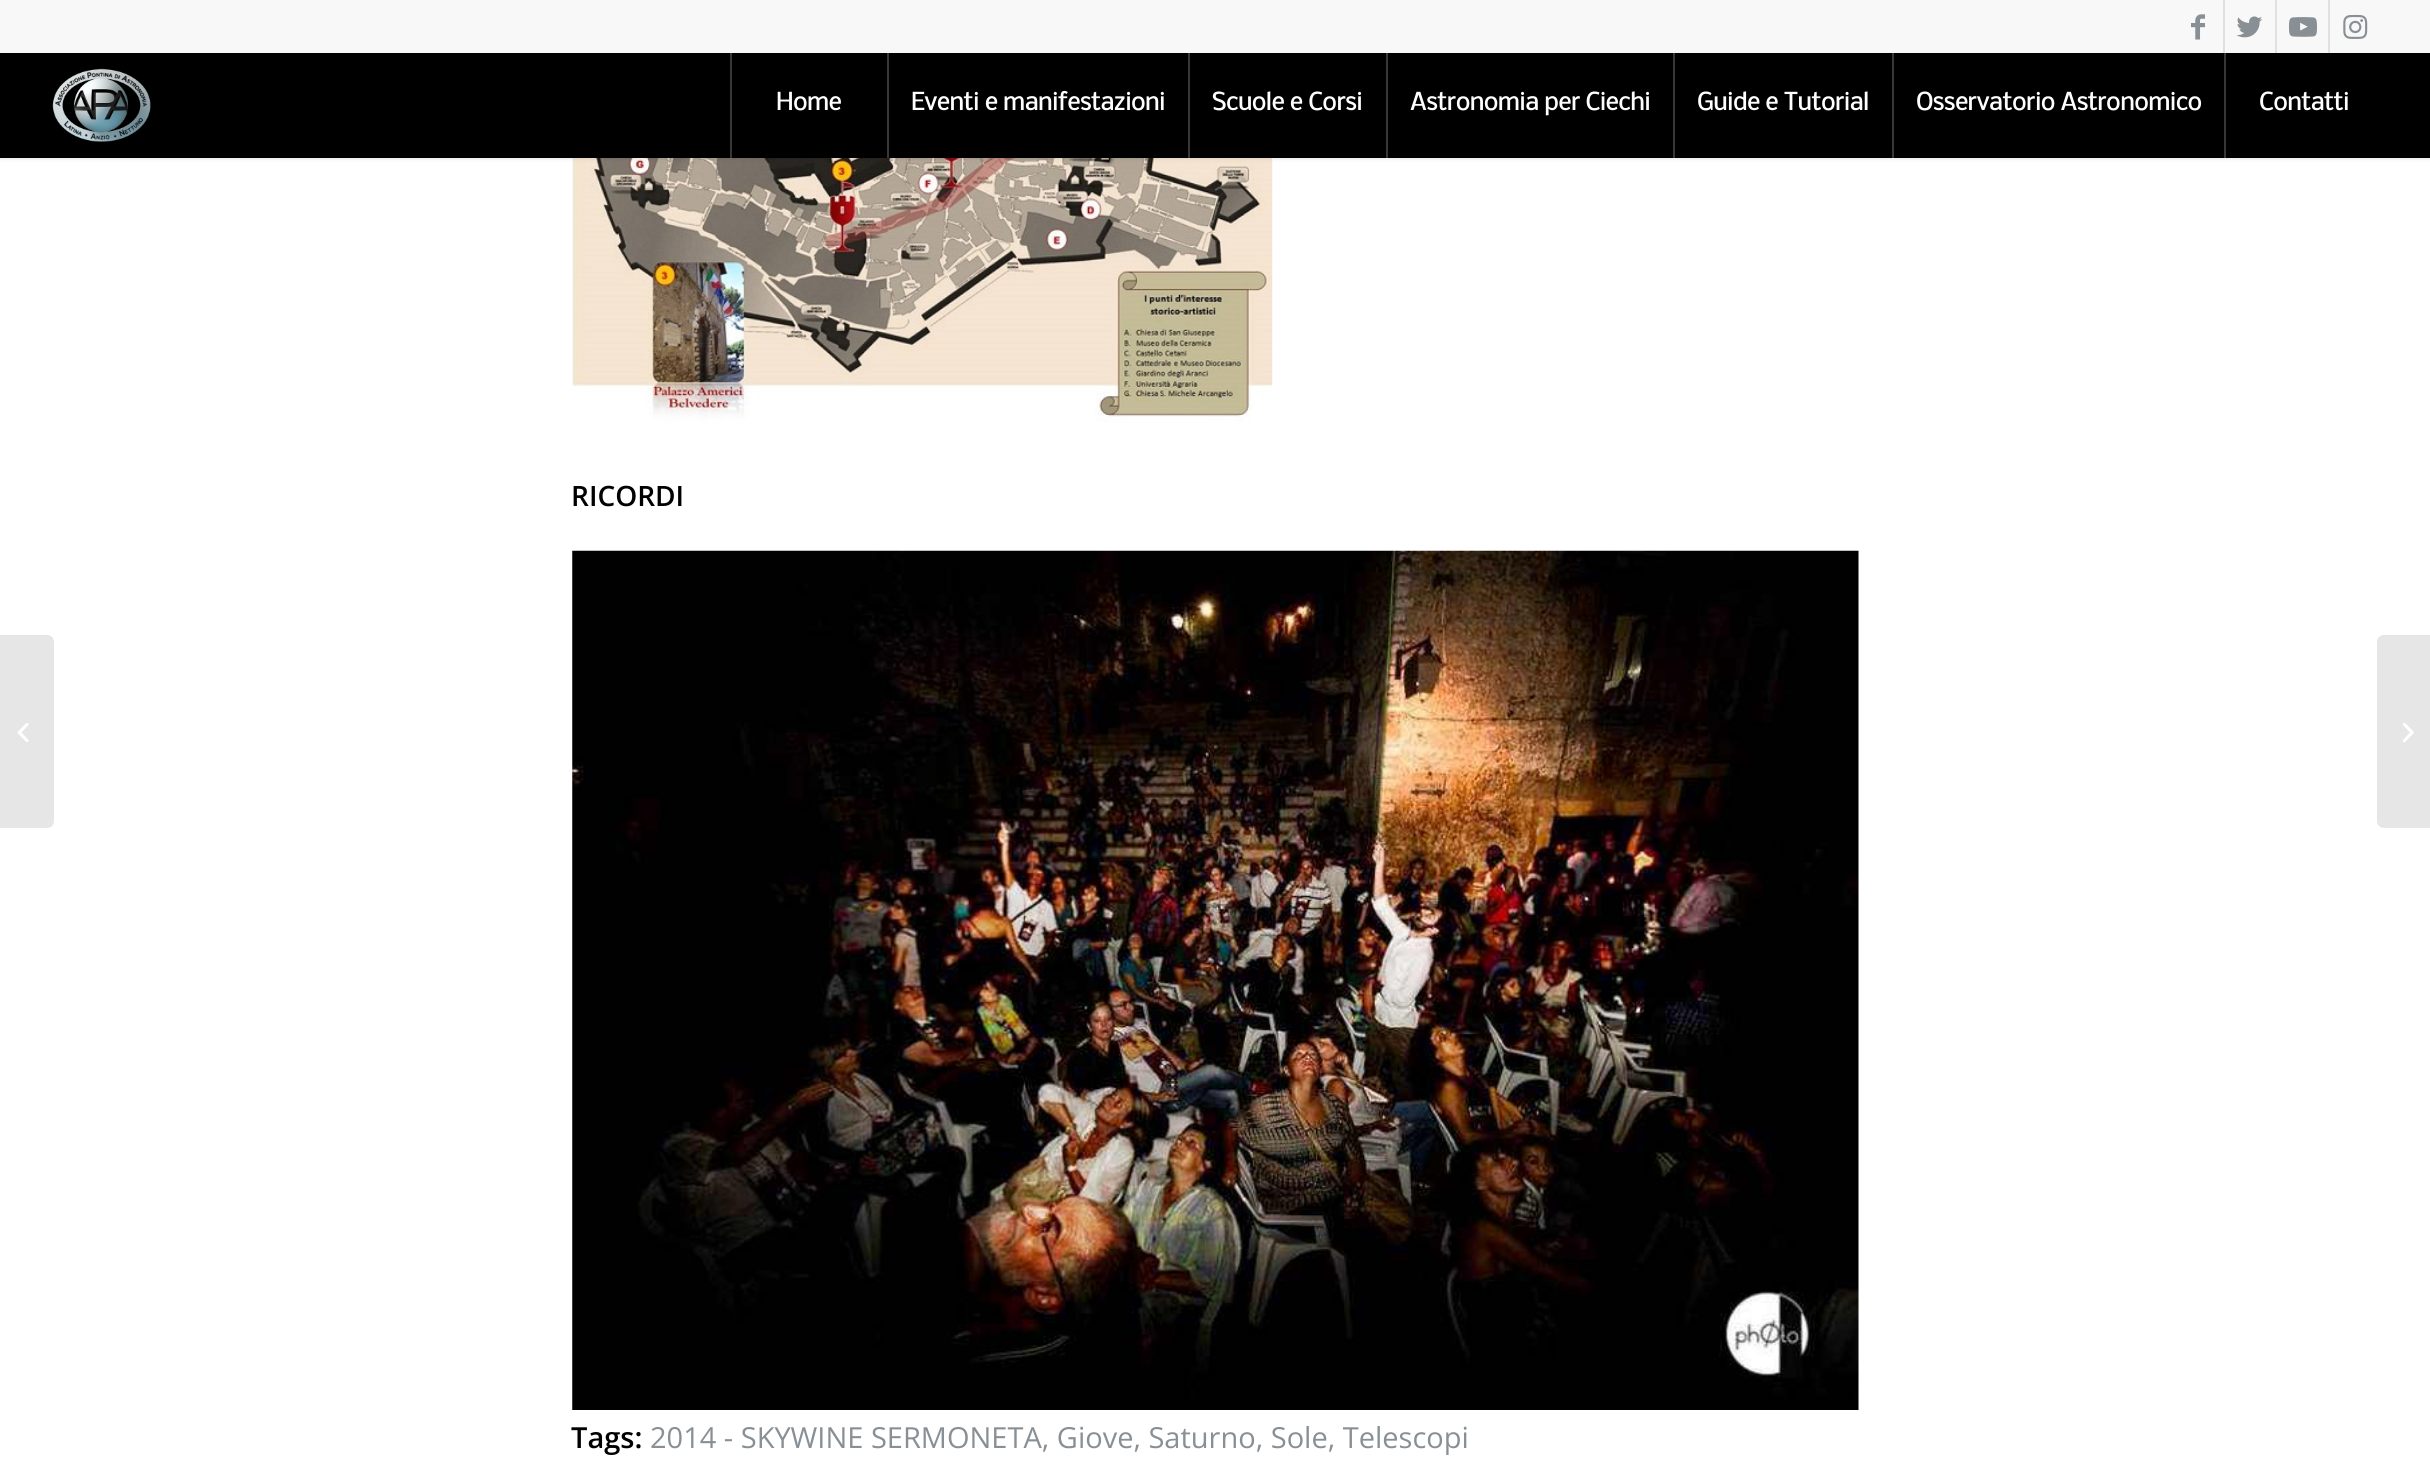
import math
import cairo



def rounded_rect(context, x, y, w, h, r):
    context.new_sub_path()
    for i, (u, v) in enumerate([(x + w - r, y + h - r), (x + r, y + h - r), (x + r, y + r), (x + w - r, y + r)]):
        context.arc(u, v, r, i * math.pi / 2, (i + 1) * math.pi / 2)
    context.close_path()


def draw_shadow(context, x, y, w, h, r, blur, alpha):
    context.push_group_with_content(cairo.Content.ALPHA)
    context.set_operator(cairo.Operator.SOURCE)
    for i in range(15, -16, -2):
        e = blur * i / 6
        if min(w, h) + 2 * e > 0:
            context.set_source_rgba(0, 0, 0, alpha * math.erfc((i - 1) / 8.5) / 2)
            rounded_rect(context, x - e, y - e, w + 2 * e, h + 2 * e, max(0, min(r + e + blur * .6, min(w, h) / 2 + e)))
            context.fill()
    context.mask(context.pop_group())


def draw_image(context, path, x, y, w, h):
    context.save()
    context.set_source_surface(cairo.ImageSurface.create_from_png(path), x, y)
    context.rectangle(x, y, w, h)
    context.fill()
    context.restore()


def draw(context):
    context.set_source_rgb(1, 1, 1)
    context.paint()
    draw_image(context, "images/7.png", 572, 158, 701, 265)
    context.set_source_rgb(0, 0, 0)
    draw_shadow(context, -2, -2, 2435, 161, 0, 2, 0.1)
    context.set_source_rgb(248 / 255, 248 / 255, 248 / 255)
    context.rectangle(0, 0, 2430, 53)
    context.fill()
    context.set_source_rgb(225 / 255, 225 / 255, 225 / 255)
    context.rectangle(2223, 0, 2, 53)
    context.fill()
    draw_image(context, "images/1.png", 2191, 14, 14, 26)
    context.rectangle(2275, 0, 2, 53)
    context.fill()
    draw_image(context, "images/2.png", 2236, 16, 26, 22)
    context.rectangle(2328, 0, 2, 53)
    context.fill()
    draw_image(context, "images/3.png", 2289, 17, 28, 20)
    draw_image(context, "images/4.png", 2343, 14, 25, 25)
    context.set_source_rgb(0, 0, 0)
    context.rectangle(0, 53, 2430, 105)
    context.fill()
    draw_image(context, "images/5.png", 52, 68, 99, 74)
    context.set_source_rgb(55 / 255, 55 / 255, 56 / 255)
    context.rectangle(730, 53, 2, 105)
    context.fill()
    context.rectangle(887, 53, 2, 105)
    context.fill()
    context.rectangle(1188, 53, 2, 105)
    context.fill()
    context.rectangle(1386, 53, 2, 105)
    context.fill()
    context.rectangle(1673, 53, 2, 105)
    context.fill()
    context.rectangle(1892, 53, 2, 105)
    context.fill()
    context.rectangle(2224, 53, 2, 105)
    context.fill()
    context.set_source_rgb(230 / 255, 230 / 255, 230 / 255)
    context.new_path()
    context.move_to(0, 635)
    context.line_to(47, 635)
    context.curve_to(51, 635, 54, 638, 54, 642)
    context.line_to(54, 821)
    context.curve_to(54, 825, 51, 828, 47, 828)
    context.line_to(0, 828)
    context.close_path()
    context.fill()
    draw_image(context, "images/6.png", 17, 723, 12, 19)
    draw_image(context, "images/8.png", 572, 550, 1287, 860)
    context.new_path()
    context.move_to(2384, 635)
    context.line_to(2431, 635)
    context.line_to(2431, 828)
    context.line_to(2384, 828)
    context.curve_to(2380, 828, 2377, 825, 2377, 821)
    context.line_to(2377, 642)
    context.curve_to(2377, 638, 2380, 635, 2384, 635)
    context.close_path()
    context.fill()
    draw_image(context, "images/9.png", 2402, 723, 12, 20)
    context.select_font_face("Nobile", cairo.FontSlant.NORMAL, cairo.FontWeight.BOLD)
    context.set_font_size(22.75)
    context.set_source_rgb(1, 1, 1)
    context.move_to(776, 110)
    context.show_text("Home")
    context.move_to(911, 110)
    context.show_text("Eventi e manifestazioni")
    context.move_to(1212, 110)
    context.show_text("Scuole e Corsi")
    context.move_to(1410, 110)
    context.show_text("Astronomia per Ciechi")
    context.move_to(1697, 110)
    context.show_text("Guide e Tutorial")
    context.move_to(1916, 110)
    context.show_text("Osservatorio Astronomico")
    context.move_to(2259, 110)
    context.show_text("Contatti")
    context.select_font_face("Open Sans SemiBold")
    context.set_font_size(28)
    context.set_source_rgb(0, 0, 0)
    context.move_to(571, 506)
    context.show_text("RICORDI")
    context.set_font_size(29)
    context.move_to(571, 1448)
    context.show_text("Tags:")
    context.select_font_face("Open Sans")
    context.set_source_rgb(136 / 255, 144 / 255, 149 / 255)
    context.move_to(650, 1448)
    context.show_text("2014 - SKYWINE SERMONETA, Giove, Saturno, Sole, Telescopi")


surface = cairo.ImageSurface(cairo.Format.RGB24, 2430, 1460)
context = cairo.Context(surface)
options = cairo.FontOptions()
options.set_hint_metrics(cairo.HintMetrics.OFF)
options.set_hint_style(cairo.HintStyle.NONE)
context.set_font_options(options)
context.set_miter_limit(4)
draw(context)
surface.write_to_png("out.png")
